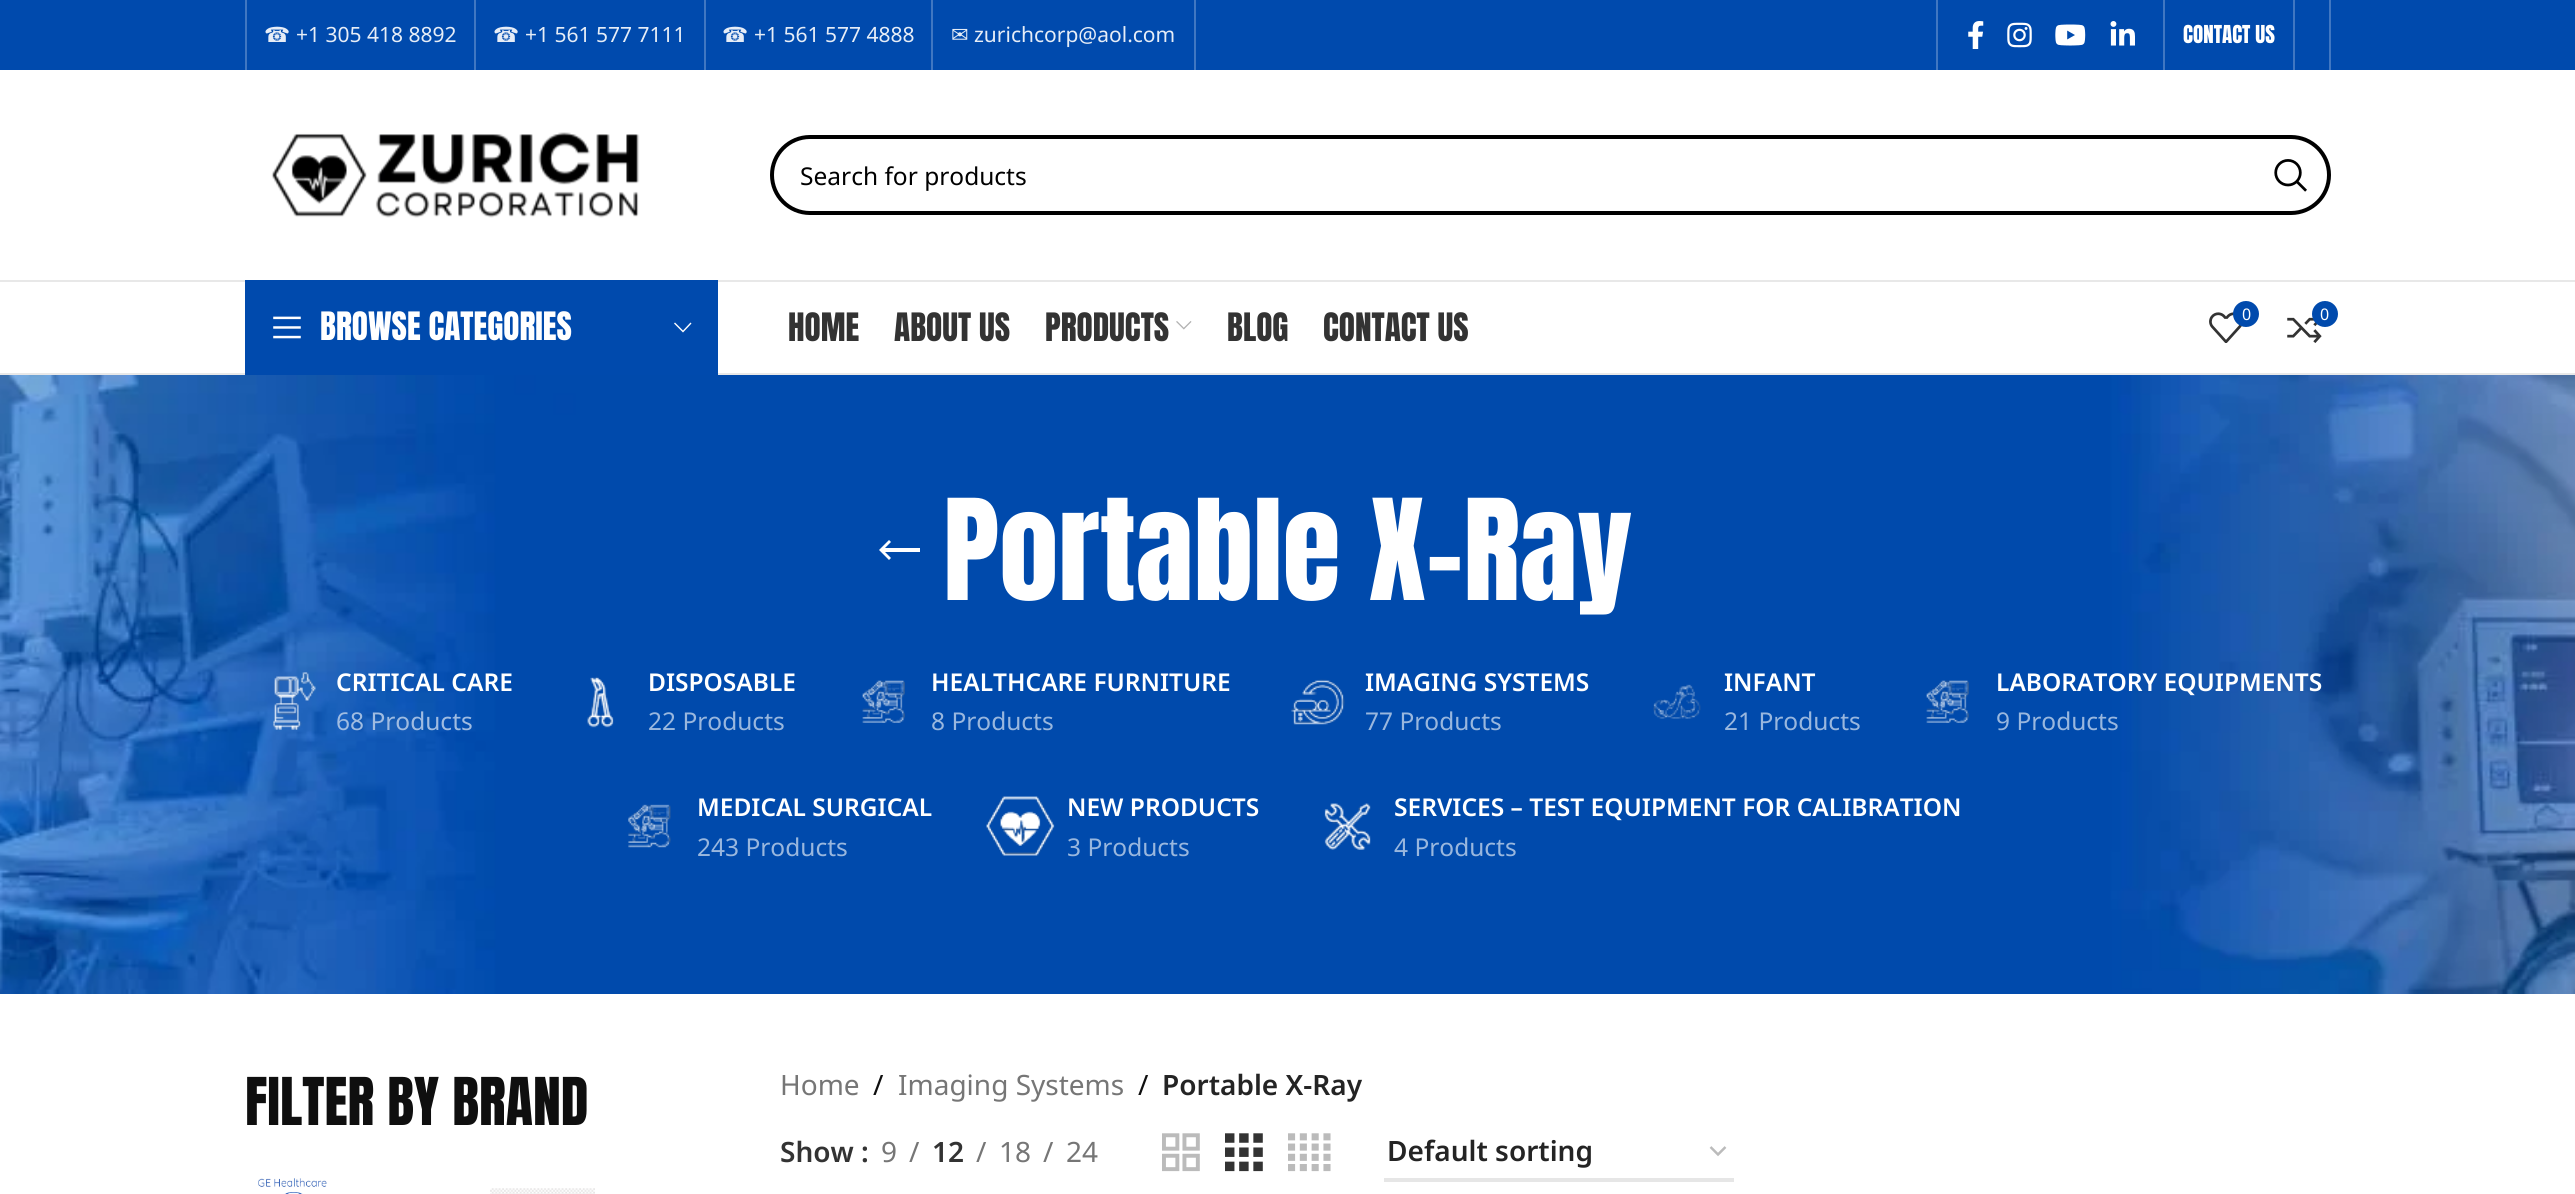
import math
import cairo



def rounded_rect(context, x, y, w, h, r):
    context.new_sub_path()
    for i, (u, v) in enumerate([(x + w - r, y + h - r), (x + r, y + h - r), (x + r, y + r), (x + w - r, y + r)]):
        context.arc(u, v, r, i * math.pi / 2, (i + 1) * math.pi / 2)
    context.close_path()


def draw_image(context, path, x, y, w, h):
    context.save()
    context.set_source_surface(cairo.ImageSurface.create_from_png(path), x, y)
    context.rectangle(x, y, w, h)
    context.fill()
    context.restore()


def draw(context):
    context.set_source_rgb(1, 1, 1)
    context.paint()
    context.set_source_rgb(0, 74 / 255, 173 / 255)
    context.rectangle(0, 0, 2575, 70)
    context.fill()
    context.set_source_rgb(64 / 255, 119 / 255, 194 / 255)
    context.rectangle(245, 0, 2, 70)
    context.fill()
    context.rectangle(474, 0, 2, 70)
    context.fill()
    context.rectangle(704, 0, 2, 70)
    context.fill()
    context.rectangle(931, 0, 2, 70)
    context.fill()
    context.rectangle(1194, 0, 2, 70)
    context.fill()
    context.rectangle(1936, 0, 2, 70)
    context.fill()
    draw_image(context, "images/1.png", 1968, 21, 16, 28)
    draw_image(context, "images/2.png", 2007, 22, 25, 26)
    draw_image(context, "images/3.png", 2055, 24, 31, 22)
    draw_image(context, "images/4.png", 2110, 21, 25, 25)
    context.rectangle(2163, 0, 2, 70)
    context.fill()
    context.rectangle(2293, 0, 2, 70)
    context.fill()
    context.rectangle(2329, 0, 2, 70)
    context.fill()
    context.set_source_rgb(232 / 255, 232 / 255, 232 / 255)
    context.rectangle(0, 280, 2575, 2)
    context.fill()
    draw_image(context, "images/5.png", 271, 132, 369, 86)
    rounded_rect(context, 772, 137, 1557, 76, 38)
    context.set_source_rgb(0, 0, 0)
    context.set_line_width(4)
    context.stroke()
    draw_image(context, "images/6.png", 2274, 159, 33, 33)
    context.set_source_rgb(232 / 255, 232 / 255, 232 / 255)
    context.rectangle(0, 373, 2575, 2)
    context.fill()
    context.set_source_rgb(0, 74 / 255, 173 / 255)
    context.rectangle(245, 280, 473, 95)
    context.fill()
    draw_image(context, "images/7.png", 273, 316, 28, 23)
    context.set_source_rgb(1, 1, 1)
    context.new_path()
    context.move_to(690.5, 322.5)
    context.line_to(683, 330.5)
    context.line_to(675, 322.5)
    context.line_to(674, 323.5)
    context.line_to(683, 332.5)
    context.line_to(691.5, 323.5)
    context.close_path()
    context.fill()
    draw_image(context, "images/8.png", 1176, 321, 16, 9)
    draw_image(context, "images/9.png", 2209, 312, 33, 31)
    context.set_source_rgb(0, 74 / 255, 173 / 255)
    context.arc(2246, 314, 13, 0, 2 * math.pi)
    context.fill()
    draw_image(context, "images/10.png", 2287, 317, 35, 26)
    context.arc(2325, 314, 13, 0, 2 * math.pi)
    context.fill()
    draw_image(context, "images/11.png", 0, 375, 2575, 619)
    context.set_source_rgb(1, 1, 1)
    context.new_path()
    context.move_to(891, 558)
    context.line_to(885, 552)
    context.line_to(920, 552)
    context.line_to(920, 548)
    context.line_to(885, 548)
    context.line_to(891, 542)
    context.line_to(889, 540)
    context.line_to(879, 550)
    context.line_to(889, 560)
    context.close_path()
    context.fill()
    draw_image(context, "images/12.png", 273, 672, 43, 58)
    draw_image(context, "images/13.png", 587, 676, 27, 52)
    draw_image(context, "images/14.png", 862, 680, 43, 43)
    draw_image(context, "images/15.png", 1291, 679, 54, 46)
    draw_image(context, "images/16.png", 1653, 684, 48, 35)
    draw_image(context, "images/14.png", 1926, 680, 43, 43)
    draw_image(context, "images/17.png", 628, 804, 43, 44)
    draw_image(context, "images/18.png", 986, 796, 69, 60)
    draw_image(context, "images/19.png", 1324, 803, 47, 47)
    draw_image(context, "images/20.png", 258, 1178, 69, 16)
    draw_image(context, "images/21.png", 490, 1188, 105, 6)
    draw_image(context, "images/22.png", 1162, 1133, 38, 39)
    draw_image(context, "images/23.png", 1225, 1133, 38, 39)
    draw_image(context, "images/24.png", 1288, 1133, 43, 39)
    context.new_path()
    context.move_to(1710.5, 1147)
    context.line_to(1718, 1154.5)
    context.line_to(1725.5, 1147)
    context.set_source_rgb(187 / 255, 187 / 255, 187 / 255)
    context.set_line_width(2.5)
    context.stroke()
    context.set_source_rgb(230 / 255, 230 / 255, 230 / 255)
    context.rectangle(1384, 1178, 350, 4)
    context.fill()
    context.select_font_face("DejaVu Sans")
    context.set_font_size(21)
    context.set_source_rgb(230 / 255, 237 / 255, 247 / 255)
    context.move_to(264, 42)
    context.show_text("☎")
    context.select_font_face("Noto Sans")
    context.move_to(296, 42)
    context.show_text("+1 305 418 8892")
    context.select_font_face("DejaVu Sans")
    context.move_to(493, 42)
    context.show_text("☎")
    context.select_font_face("Noto Sans")
    context.move_to(525, 42)
    context.show_text("+1 561 577 7111")
    context.select_font_face("DejaVu Sans")
    context.move_to(722, 42)
    context.show_text("☎")
    context.select_font_face("Noto Sans")
    context.move_to(754, 42)
    context.show_text("+1 561 577 4888")
    context.select_font_face("DejaVu Sans")
    context.move_to(951, 42)
    context.show_text("✉")
    context.select_font_face("Noto Sans")
    context.move_to(974, 42)
    context.show_text("zurichcorp@aol.com")
    context.select_font_face("Anton")
    context.set_source_rgb(1, 1, 1)
    context.move_to(2183, 43)
    context.show_text("CONTACT US")
    context.select_font_face("Noto Sans")
    context.set_font_size(24.5)
    context.set_source_rgb(0, 0, 0)
    context.move_to(800, 185)
    context.show_text("Search for products")
    context.select_font_face("Anton")
    context.set_font_size(33.25)
    context.set_source_rgb(1, 1, 1)
    context.move_to(320, 340)
    context.show_text("BROWSE CATEGORIES")
    context.set_source_rgb(51 / 255, 51 / 255, 51 / 255)
    context.move_to(788, 341)
    context.show_text("HOME")
    context.move_to(894, 341)
    context.show_text("ABOUT US")
    context.move_to(1045, 341)
    context.show_text("PRODUCTS")
    context.move_to(1227, 341)
    context.show_text("BLOG")
    context.move_to(1323, 341)
    context.show_text("CONTACT US")
    context.select_font_face("Noto Sans")
    context.set_font_size(16)
    context.set_source_rgb(1, 1, 1)
    context.move_to(2242, 320)
    context.show_text("0")
    context.move_to(2320, 320)
    context.show_text("0")
    context.select_font_face("Anton")
    context.set_font_size(119)
    context.move_to(943, 600)
    context.show_text("Portable X-Ray")
    context.select_font_face("Noto Sans SemiBold")
    context.set_font_size(24.5)
    context.move_to(336, 691)
    context.show_text("CRITICAL CARE")
    context.select_font_face("Noto Sans")
    context.set_source_rgb(160 / 255, 188 / 255, 225 / 255)
    context.move_to(336, 730)
    context.show_text("68 Products")
    context.select_font_face("Noto Sans SemiBold")
    context.set_source_rgb(1, 1, 1)
    context.move_to(648, 691)
    context.show_text("DISPOSABLE")
    context.select_font_face("Noto Sans")
    context.set_source_rgb(153 / 255, 183 / 255, 222 / 255)
    context.move_to(648, 730)
    context.show_text("22 Products")
    context.select_font_face("Noto Sans SemiBold")
    context.set_source_rgb(1, 1, 1)
    context.move_to(931, 691)
    context.show_text("HEALTHCARE FURNITURE")
    context.select_font_face("Noto Sans")
    context.set_source_rgb(153 / 255, 183 / 255, 222 / 255)
    context.move_to(931, 730)
    context.show_text("8 Products")
    context.select_font_face("Noto Sans SemiBold")
    context.set_source_rgb(1, 1, 1)
    context.move_to(1365, 691)
    context.show_text("IMAGING SYSTEMS")
    context.select_font_face("Noto Sans")
    context.set_source_rgb(153 / 255, 183 / 255, 222 / 255)
    context.move_to(1365, 730)
    context.show_text("77 Products")
    context.select_font_face("Noto Sans SemiBold")
    context.set_source_rgb(1, 1, 1)
    context.move_to(1724, 691)
    context.show_text("INFANT")
    context.select_font_face("Noto Sans")
    context.set_source_rgb(153 / 255, 183 / 255, 222 / 255)
    context.move_to(1724, 730)
    context.show_text("21 Products")
    context.select_font_face("Noto Sans SemiBold")
    context.set_source_rgb(1, 1, 1)
    context.move_to(1996, 691)
    context.show_text("LABORATORY EQUIPMENTS")
    context.select_font_face("Noto Sans")
    context.set_source_rgb(153 / 255, 183 / 255, 222 / 255)
    context.move_to(1996, 730)
    context.show_text("9 Products")
    context.select_font_face("Noto Sans SemiBold")
    context.set_source_rgb(1, 1, 1)
    context.move_to(697, 816)
    context.show_text("MEDICAL SURGICAL")
    context.select_font_face("Noto Sans")
    context.set_source_rgb(153 / 255, 183 / 255, 222 / 255)
    context.move_to(697, 856)
    context.show_text("243 Products")
    context.select_font_face("Noto Sans SemiBold")
    context.set_source_rgb(1, 1, 1)
    context.move_to(1067, 816)
    context.show_text("NEW PRODUCTS")
    context.select_font_face("Noto Sans")
    context.set_source_rgb(153 / 255, 183 / 255, 222 / 255)
    context.move_to(1067, 856)
    context.show_text("3 Products")
    context.select_font_face("Noto Sans SemiBold")
    context.set_source_rgb(1, 1, 1)
    context.move_to(1394, 816)
    context.show_text("SERVICES – TEST EQUIPMENT FOR CALIBRATION")
    context.select_font_face("Noto Sans")
    context.set_source_rgb(153 / 255, 183 / 255, 222 / 255)
    context.move_to(1394, 856)
    context.show_text("4 Products")
    context.select_font_face("Anton")
    context.set_font_size(56)
    context.set_source_rgb(15 / 255, 15 / 255, 15 / 255)
    context.move_to(245, 1125)
    context.show_text("FILTER BY BRAND")
    context.select_font_face("Noto Sans")
    context.set_font_size(28)
    context.set_source_rgb(118 / 255, 118 / 255, 118 / 255)
    context.move_to(780, 1095)
    context.show_text("Home")
    context.set_source_rgb(15 / 255, 15 / 255, 15 / 255)
    context.move_to(873, 1095)
    context.show_text("/")
    context.set_source_rgb(118 / 255, 118 / 255, 118 / 255)
    context.move_to(898, 1095)
    context.show_text("Imaging Systems")
    context.set_source_rgb(15 / 255, 15 / 255, 15 / 255)
    context.move_to(1138, 1095)
    context.show_text("/")
    context.select_font_face("Noto Sans SemiBold")
    context.set_source_rgb(36 / 255, 36 / 255, 36 / 255)
    context.move_to(1162, 1095)
    context.show_text("Portable X-Ray")
    context.set_source_rgb(51 / 255, 51 / 255, 51 / 255)
    context.move_to(780, 1162)
    context.show_text("Show :")
    context.select_font_face("Noto Sans")
    context.set_source_rgb(118 / 255, 118 / 255, 118 / 255)
    context.move_to(881, 1162)
    context.show_text("9")
    context.move_to(909, 1162)
    context.show_text("/")
    context.select_font_face("Noto Sans SemiBold")
    context.set_source_rgb(51 / 255, 51 / 255, 51 / 255)
    context.move_to(932, 1162)
    context.show_text("12")
    context.select_font_face("Noto Sans")
    context.set_source_rgb(118 / 255, 118 / 255, 118 / 255)
    context.move_to(976, 1162)
    context.show_text("/")
    context.move_to(999, 1162)
    context.show_text("18")
    context.move_to(1043, 1162)
    context.show_text("/")
    context.move_to(1066, 1162)
    context.show_text("24")
    context.select_font_face("Noto Sans SemiBold")
    context.set_source_rgb(36 / 255, 36 / 255, 36 / 255)
    context.move_to(1387, 1161)
    context.show_text("Default sorting")


surface = cairo.ImageSurface(cairo.Format.RGB24, 2575, 1194)
context = cairo.Context(surface)
options = cairo.FontOptions()
options.set_hint_metrics(cairo.HintMetrics.OFF)
options.set_hint_style(cairo.HintStyle.NONE)
context.set_font_options(options)
context.set_miter_limit(4)
draw(context)
surface.write_to_png("out.png")
